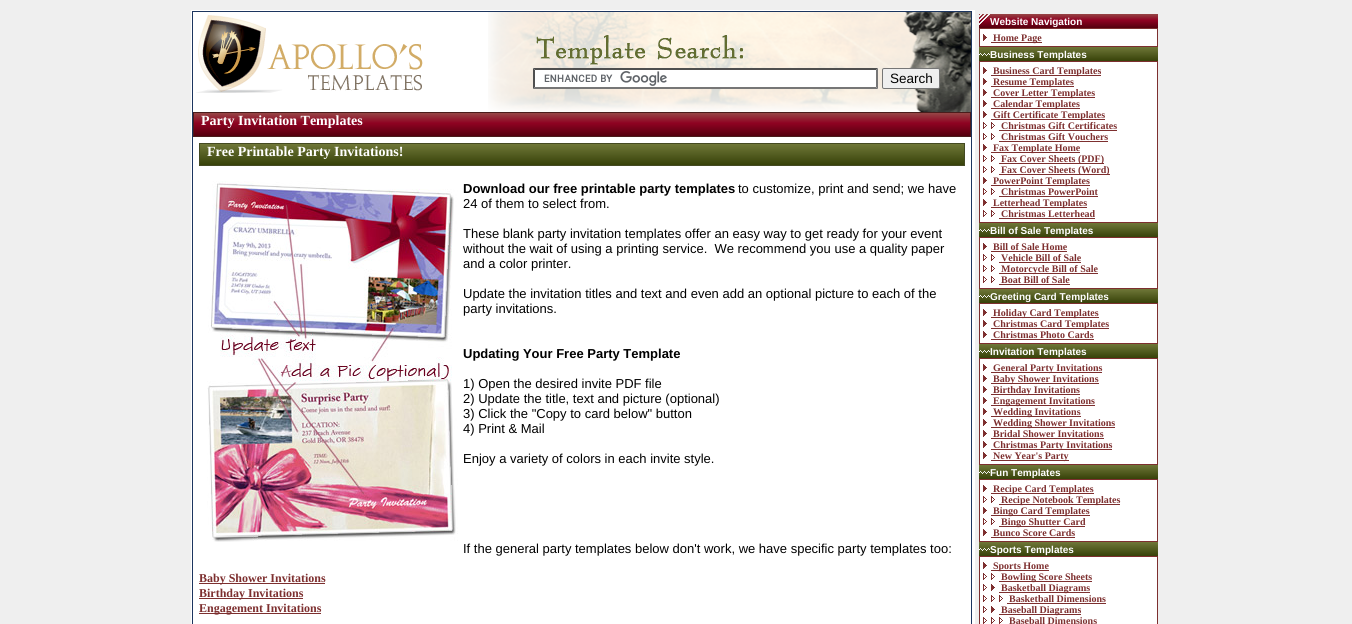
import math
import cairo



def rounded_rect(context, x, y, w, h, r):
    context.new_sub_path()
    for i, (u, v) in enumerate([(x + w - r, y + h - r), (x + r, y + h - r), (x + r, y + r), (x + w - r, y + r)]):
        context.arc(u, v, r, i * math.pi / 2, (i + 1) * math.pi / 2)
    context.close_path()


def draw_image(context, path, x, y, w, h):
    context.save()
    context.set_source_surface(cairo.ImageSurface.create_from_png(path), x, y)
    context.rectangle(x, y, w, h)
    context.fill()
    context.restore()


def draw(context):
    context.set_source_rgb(239 / 255, 239 / 255, 239 / 255)
    context.paint()
    context.set_source_rgb(1, 1, 1)
    context.rectangle(191, 10, 784, 614)
    context.fill()
    context.rectangle(192.5, 11.5, 779, 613)
    context.set_source_rgb(28 / 255, 53 / 255, 95 / 255)
    context.set_line_width(1)
    context.stroke()
    draw_image(context, "images/1.png", 196, 15, 227, 78)
    draw_image(context, "images/2.png", 488, 12, 483, 100)
    draw_image(context, "images/3.png", 536, 35, 208, 30)
    context.set_source_rgb(1, 1, 1)
    context.rectangle(533, 68, 345, 21)
    context.fill()
    draw_image(context, "images/4.png", 544, 71, 123, 15)
    context.set_source_rgb(79 / 255, 79 / 255, 79 / 255)
    context.new_path()
    context.move_to(533, 68)
    context.line_to(878, 68)
    context.line_to(876, 70)
    context.line_to(535, 70)
    context.close_path()
    context.fill()
    context.set_source_rgb(118 / 255, 118 / 255, 118 / 255)
    context.new_path()
    context.move_to(878, 68)
    context.line_to(878, 89)
    context.line_to(876, 87)
    context.line_to(876, 70)
    context.close_path()
    context.fill()
    context.new_path()
    context.move_to(878, 89)
    context.line_to(533, 89)
    context.line_to(535, 87)
    context.line_to(876, 87)
    context.close_path()
    context.fill()
    context.set_source_rgb(79 / 255, 79 / 255, 79 / 255)
    context.new_path()
    context.move_to(533, 89)
    context.line_to(533, 68)
    context.line_to(535, 70)
    context.line_to(535, 87)
    context.close_path()
    context.fill()
    context.set_source_rgb(239 / 255, 239 / 255, 239 / 255)
    rounded_rect(context, 882.5, 68.5, 57, 20, 1.5)
    context.fill_preserve()
    context.set_source_rgb(118 / 255, 118 / 255, 118 / 255)
    context.stroke()
    gradient = cairo.LinearGradient(582, 113, 582, 136)
    gradient.add_color_stop_rgba(0, 150 / 255, 70 / 255, 70 / 255, 1)
    gradient.add_color_stop_rgba(0.44, 143 / 255, 2 / 255, 34 / 255, 1)
    gradient.add_color_stop_rgba(1, 84 / 255, 0, 14 / 255, 1)
    context.set_source(gradient)
    context.rectangle(194, 113, 776, 23)
    context.fill()
    context.rectangle(193.5, 112.5, 777, 24)
    context.set_source_rgb(74 / 255, 28 / 255, 28 / 255)
    context.stroke()
    gradient = cairo.LinearGradient(582, 144, 582, 165)
    gradient.add_color_stop_rgba(0, 111 / 255, 119 / 255, 56 / 255, 1)
    gradient.add_color_stop_rgba(1, 55 / 255, 66 / 255, 9 / 255, 1)
    context.set_source(gradient)
    context.rectangle(200, 144, 764, 21)
    context.fill()
    context.rectangle(199.5, 143.5, 765, 22)
    context.set_source_rgb(68 / 255, 74 / 255, 34 / 255)
    context.stroke()
    draw_image(context, "images/5.png", 207, 181, 251, 361)
    context.set_source_rgb(125 / 255, 47 / 255, 47 / 255)
    context.rectangle(199, 583, 126, 1)
    context.fill()
    context.rectangle(199, 598, 104, 1)
    context.fill()
    context.rectangle(199, 613, 122, 1)
    context.fill()
    gradient = cairo.LinearGradient(985, 14, 985, 28)
    gradient.add_color_stop_rgba(0, 150 / 255, 70 / 255, 70 / 255, 1)
    gradient.add_color_stop_rgba(0.44, 143 / 255, 2 / 255, 34 / 255, 1)
    gradient.add_color_stop_rgba(1, 84 / 255, 0, 14 / 255, 1)
    context.set_source(gradient)
    context.rectangle(979, 14, 11, 14)
    context.fill()
    draw_image(context, "images/6.png", 979, 14, 11, 11)
    gradient = cairo.LinearGradient(1069, 14, 1069, 28)
    gradient.add_color_stop_rgba(0, 150 / 255, 70 / 255, 70 / 255, 1)
    gradient.add_color_stop_rgba(0.44, 143 / 255, 2 / 255, 34 / 255, 1)
    gradient.add_color_stop_rgba(1, 84 / 255, 0, 14 / 255, 1)
    context.set_source(gradient)
    context.rectangle(990, 14, 157, 14)
    context.fill()
    gradient = cairo.LinearGradient(1153, 14, 1153, 28)
    gradient.add_color_stop_rgba(0, 150 / 255, 70 / 255, 70 / 255, 1)
    gradient.add_color_stop_rgba(0.44, 143 / 255, 2 / 255, 34 / 255, 1)
    gradient.add_color_stop_rgba(1, 84 / 255, 0, 14 / 255, 1)
    context.set_source(gradient)
    context.rectangle(1147, 14, 11, 14)
    context.fill()
    context.set_source_rgb(125 / 255, 47 / 255, 47 / 255)
    context.rectangle(979, 28, 179, 19)
    context.fill()
    context.set_source_rgb(1, 1, 1)
    context.rectangle(980, 29, 177, 17)
    context.fill()
    draw_image(context, "images/7.png", 983, 34, 4, 7)
    context.set_source_rgb(125 / 255, 47 / 255, 47 / 255)
    context.rectangle(991, 42, 51, 1)
    context.fill()
    gradient = cairo.LinearGradient(985, 47, 985, 61)
    gradient.add_color_stop_rgba(0, 111 / 255, 119 / 255, 56 / 255, 1)
    gradient.add_color_stop_rgba(1, 55 / 255, 66 / 255, 9 / 255, 1)
    context.set_source(gradient)
    context.rectangle(979, 47, 11, 14)
    context.fill()
    draw_image(context, "images/8.png", 979, 53, 11, 3)
    gradient = cairo.LinearGradient(1069, 47, 1069, 61)
    gradient.add_color_stop_rgba(0, 111 / 255, 119 / 255, 56 / 255, 1)
    gradient.add_color_stop_rgba(1, 55 / 255, 66 / 255, 9 / 255, 1)
    context.set_source(gradient)
    context.rectangle(990, 47, 157, 14)
    context.fill()
    gradient = cairo.LinearGradient(1153, 47, 1153, 61)
    gradient.add_color_stop_rgba(0, 111 / 255, 119 / 255, 56 / 255, 1)
    gradient.add_color_stop_rgba(1, 55 / 255, 66 / 255, 9 / 255, 1)
    context.set_source(gradient)
    context.rectangle(1147, 47, 11, 14)
    context.fill()
    context.set_source_rgb(125 / 255, 47 / 255, 47 / 255)
    context.rectangle(979, 61, 179, 162)
    context.fill()
    context.set_source_rgb(1, 1, 1)
    context.rectangle(980, 62, 177, 160)
    context.fill()
    draw_image(context, "images/7.png", 983, 67, 4, 7)
    context.set_source_rgb(125 / 255, 47 / 255, 47 / 255)
    context.rectangle(991, 75, 110, 1)
    context.fill()
    draw_image(context, "images/7.png", 983, 78, 4, 7)
    context.rectangle(991, 86, 83, 1)
    context.fill()
    draw_image(context, "images/7.png", 983, 89, 4, 7)
    context.rectangle(991, 97, 104, 1)
    context.fill()
    draw_image(context, "images/7.png", 983, 100, 4, 7)
    context.rectangle(991, 108, 89, 1)
    context.fill()
    draw_image(context, "images/7.png", 983, 111, 4, 7)
    context.rectangle(991, 119, 114, 1)
    context.fill()
    draw_image(context, "images/9.png", 983, 122, 4, 7)
    draw_image(context, "images/9.png", 991, 122, 4, 7)
    context.rectangle(999, 130, 118, 1)
    context.fill()
    draw_image(context, "images/9.png", 983, 133, 4, 7)
    draw_image(context, "images/9.png", 991, 133, 4, 7)
    context.rectangle(999, 141, 109, 1)
    context.fill()
    draw_image(context, "images/7.png", 983, 144, 4, 7)
    context.rectangle(991, 152, 89, 1)
    context.fill()
    draw_image(context, "images/9.png", 983, 155, 4, 7)
    draw_image(context, "images/9.png", 991, 155, 4, 7)
    context.rectangle(999, 163, 105, 1)
    context.fill()
    draw_image(context, "images/9.png", 983, 166, 4, 7)
    draw_image(context, "images/9.png", 991, 166, 4, 7)
    context.rectangle(999, 174, 111, 1)
    context.fill()
    draw_image(context, "images/7.png", 983, 177, 4, 7)
    context.rectangle(991, 185, 99, 1)
    context.fill()
    draw_image(context, "images/9.png", 983, 188, 4, 7)
    draw_image(context, "images/9.png", 991, 188, 4, 7)
    context.rectangle(999, 196, 99, 1)
    context.fill()
    draw_image(context, "images/7.png", 983, 199, 4, 7)
    context.rectangle(991, 207, 96, 1)
    context.fill()
    draw_image(context, "images/9.png", 983, 210, 4, 7)
    draw_image(context, "images/9.png", 991, 210, 4, 7)
    context.rectangle(999, 218, 96, 1)
    context.fill()
    gradient = cairo.LinearGradient(985, 223, 985, 237)
    gradient.add_color_stop_rgba(0, 111 / 255, 119 / 255, 56 / 255, 1)
    gradient.add_color_stop_rgba(1, 55 / 255, 66 / 255, 9 / 255, 1)
    context.set_source(gradient)
    context.rectangle(979, 223, 11, 14)
    context.fill()
    draw_image(context, "images/8.png", 979, 229, 11, 3)
    gradient = cairo.LinearGradient(1069, 223, 1069, 237)
    gradient.add_color_stop_rgba(0, 111 / 255, 119 / 255, 56 / 255, 1)
    gradient.add_color_stop_rgba(1, 55 / 255, 66 / 255, 9 / 255, 1)
    context.set_source(gradient)
    context.rectangle(990, 223, 157, 14)
    context.fill()
    gradient = cairo.LinearGradient(1153, 223, 1153, 237)
    gradient.add_color_stop_rgba(0, 111 / 255, 119 / 255, 56 / 255, 1)
    gradient.add_color_stop_rgba(1, 55 / 255, 66 / 255, 9 / 255, 1)
    context.set_source(gradient)
    context.rectangle(1147, 223, 11, 14)
    context.fill()
    context.set_source_rgb(125 / 255, 47 / 255, 47 / 255)
    context.rectangle(979, 237, 179, 52)
    context.fill()
    context.set_source_rgb(1, 1, 1)
    context.rectangle(980, 238, 177, 50)
    context.fill()
    draw_image(context, "images/7.png", 983, 243, 4, 7)
    context.set_source_rgb(125 / 255, 47 / 255, 47 / 255)
    context.rectangle(991, 251, 76, 1)
    context.fill()
    draw_image(context, "images/9.png", 983, 254, 4, 7)
    draw_image(context, "images/9.png", 991, 254, 4, 7)
    context.rectangle(999, 262, 82, 1)
    context.fill()
    draw_image(context, "images/9.png", 983, 265, 4, 7)
    draw_image(context, "images/9.png", 991, 265, 4, 7)
    context.rectangle(999, 273, 99, 1)
    context.fill()
    draw_image(context, "images/9.png", 983, 276, 4, 7)
    draw_image(context, "images/9.png", 991, 276, 4, 7)
    context.rectangle(999, 284, 71, 1)
    context.fill()
    gradient = cairo.LinearGradient(985, 289, 985, 303)
    gradient.add_color_stop_rgba(0, 111 / 255, 119 / 255, 56 / 255, 1)
    gradient.add_color_stop_rgba(1, 55 / 255, 66 / 255, 9 / 255, 1)
    context.set_source(gradient)
    context.rectangle(979, 289, 11, 14)
    context.fill()
    draw_image(context, "images/8.png", 979, 295, 11, 3)
    gradient = cairo.LinearGradient(1069, 289, 1069, 303)
    gradient.add_color_stop_rgba(0, 111 / 255, 119 / 255, 56 / 255, 1)
    gradient.add_color_stop_rgba(1, 55 / 255, 66 / 255, 9 / 255, 1)
    context.set_source(gradient)
    context.rectangle(990, 289, 157, 14)
    context.fill()
    gradient = cairo.LinearGradient(1153, 289, 1153, 303)
    gradient.add_color_stop_rgba(0, 111 / 255, 119 / 255, 56 / 255, 1)
    gradient.add_color_stop_rgba(1, 55 / 255, 66 / 255, 9 / 255, 1)
    context.set_source(gradient)
    context.rectangle(1147, 289, 11, 14)
    context.fill()
    context.set_source_rgb(125 / 255, 47 / 255, 47 / 255)
    context.rectangle(979, 303, 179, 41)
    context.fill()
    context.set_source_rgb(1, 1, 1)
    context.rectangle(980, 304, 177, 39)
    context.fill()
    draw_image(context, "images/7.png", 983, 309, 4, 7)
    context.set_source_rgb(125 / 255, 47 / 255, 47 / 255)
    context.rectangle(991, 317, 108, 1)
    context.fill()
    draw_image(context, "images/7.png", 983, 320, 4, 7)
    context.rectangle(991, 328, 118, 1)
    context.fill()
    draw_image(context, "images/7.png", 983, 331, 4, 7)
    context.rectangle(991, 339, 103, 1)
    context.fill()
    gradient = cairo.LinearGradient(985, 344, 985, 358)
    gradient.add_color_stop_rgba(0, 111 / 255, 119 / 255, 56 / 255, 1)
    gradient.add_color_stop_rgba(1, 55 / 255, 66 / 255, 9 / 255, 1)
    context.set_source(gradient)
    context.rectangle(979, 344, 11, 14)
    context.fill()
    draw_image(context, "images/8.png", 979, 350, 11, 3)
    gradient = cairo.LinearGradient(1069, 344, 1069, 358)
    gradient.add_color_stop_rgba(0, 111 / 255, 119 / 255, 56 / 255, 1)
    gradient.add_color_stop_rgba(1, 55 / 255, 66 / 255, 9 / 255, 1)
    context.set_source(gradient)
    context.rectangle(990, 344, 157, 14)
    context.fill()
    gradient = cairo.LinearGradient(1153, 344, 1153, 358)
    gradient.add_color_stop_rgba(0, 111 / 255, 119 / 255, 56 / 255, 1)
    gradient.add_color_stop_rgba(1, 55 / 255, 66 / 255, 9 / 255, 1)
    context.set_source(gradient)
    context.rectangle(1147, 344, 11, 14)
    context.fill()
    context.set_source_rgb(125 / 255, 47 / 255, 47 / 255)
    context.rectangle(979, 358, 179, 107)
    context.fill()
    context.set_source_rgb(1, 1, 1)
    context.rectangle(980, 359, 177, 105)
    context.fill()
    draw_image(context, "images/7.png", 983, 364, 4, 7)
    context.set_source_rgb(125 / 255, 47 / 255, 47 / 255)
    context.rectangle(991, 372, 111, 1)
    context.fill()
    draw_image(context, "images/7.png", 983, 375, 4, 7)
    context.rectangle(991, 383, 108, 1)
    context.fill()
    draw_image(context, "images/7.png", 983, 386, 4, 7)
    context.rectangle(991, 394, 89, 1)
    context.fill()
    draw_image(context, "images/7.png", 983, 397, 4, 7)
    context.rectangle(991, 405, 104, 1)
    context.fill()
    draw_image(context, "images/7.png", 983, 408, 4, 7)
    context.rectangle(991, 416, 90, 1)
    context.fill()
    draw_image(context, "images/7.png", 983, 419, 4, 7)
    context.rectangle(991, 427, 124, 1)
    context.fill()
    draw_image(context, "images/7.png", 983, 430, 4, 7)
    context.rectangle(991, 438, 113, 1)
    context.fill()
    draw_image(context, "images/7.png", 983, 441, 4, 7)
    context.rectangle(991, 449, 121, 1)
    context.fill()
    draw_image(context, "images/7.png", 983, 452, 4, 7)
    context.rectangle(991, 460, 78, 1)
    context.fill()
    gradient = cairo.LinearGradient(985, 465, 985, 479)
    gradient.add_color_stop_rgba(0, 111 / 255, 119 / 255, 56 / 255, 1)
    gradient.add_color_stop_rgba(1, 55 / 255, 66 / 255, 9 / 255, 1)
    context.set_source(gradient)
    context.rectangle(979, 465, 11, 14)
    context.fill()
    draw_image(context, "images/8.png", 979, 471, 11, 3)
    gradient = cairo.LinearGradient(1069, 465, 1069, 479)
    gradient.add_color_stop_rgba(0, 111 / 255, 119 / 255, 56 / 255, 1)
    gradient.add_color_stop_rgba(1, 55 / 255, 66 / 255, 9 / 255, 1)
    context.set_source(gradient)
    context.rectangle(990, 465, 157, 14)
    context.fill()
    gradient = cairo.LinearGradient(1153, 465, 1153, 479)
    gradient.add_color_stop_rgba(0, 111 / 255, 119 / 255, 56 / 255, 1)
    gradient.add_color_stop_rgba(1, 55 / 255, 66 / 255, 9 / 255, 1)
    context.set_source(gradient)
    context.rectangle(1147, 465, 11, 14)
    context.fill()
    context.set_source_rgb(125 / 255, 47 / 255, 47 / 255)
    context.rectangle(979, 479, 179, 63)
    context.fill()
    context.set_source_rgb(1, 1, 1)
    context.rectangle(980, 480, 177, 61)
    context.fill()
    draw_image(context, "images/7.png", 983, 485, 4, 7)
    context.set_source_rgb(125 / 255, 47 / 255, 47 / 255)
    context.rectangle(991, 493, 103, 1)
    context.fill()
    draw_image(context, "images/9.png", 983, 496, 4, 7)
    draw_image(context, "images/9.png", 991, 496, 4, 7)
    context.rectangle(999, 504, 121, 1)
    context.fill()
    draw_image(context, "images/7.png", 983, 507, 4, 7)
    context.rectangle(991, 515, 99, 1)
    context.fill()
    draw_image(context, "images/9.png", 983, 518, 4, 7)
    draw_image(context, "images/9.png", 991, 518, 4, 7)
    context.rectangle(999, 526, 86, 1)
    context.fill()
    draw_image(context, "images/7.png", 983, 529, 4, 7)
    context.rectangle(991, 537, 84, 1)
    context.fill()
    gradient = cairo.LinearGradient(985, 542, 985, 556)
    gradient.add_color_stop_rgba(0, 111 / 255, 119 / 255, 56 / 255, 1)
    gradient.add_color_stop_rgba(1, 55 / 255, 66 / 255, 9 / 255, 1)
    context.set_source(gradient)
    context.rectangle(979, 542, 11, 14)
    context.fill()
    draw_image(context, "images/8.png", 979, 548, 11, 3)
    gradient = cairo.LinearGradient(1069, 542, 1069, 556)
    gradient.add_color_stop_rgba(0, 111 / 255, 119 / 255, 56 / 255, 1)
    gradient.add_color_stop_rgba(1, 55 / 255, 66 / 255, 9 / 255, 1)
    context.set_source(gradient)
    context.rectangle(990, 542, 157, 14)
    context.fill()
    gradient = cairo.LinearGradient(1153, 542, 1153, 556)
    gradient.add_color_stop_rgba(0, 111 / 255, 119 / 255, 56 / 255, 1)
    gradient.add_color_stop_rgba(1, 55 / 255, 66 / 255, 9 / 255, 1)
    context.set_source(gradient)
    context.rectangle(1147, 542, 11, 14)
    context.fill()
    context.set_source_rgb(125 / 255, 47 / 255, 47 / 255)
    context.rectangle(979, 556, 179, 68)
    context.fill()
    context.set_source_rgb(1, 1, 1)
    context.rectangle(980, 557, 177, 67)
    context.fill()
    draw_image(context, "images/7.png", 983, 562, 4, 7)
    context.set_source_rgb(125 / 255, 47 / 255, 47 / 255)
    context.rectangle(991, 570, 58, 1)
    context.fill()
    draw_image(context, "images/9.png", 983, 573, 4, 7)
    draw_image(context, "images/9.png", 991, 573, 4, 7)
    context.rectangle(999, 581, 93, 1)
    context.fill()
    draw_image(context, "images/9.png", 983, 584, 4, 7)
    draw_image(context, "images/7.png", 991, 584, 4, 7)
    context.rectangle(999, 592, 91, 1)
    context.fill()
    draw_image(context, "images/9.png", 983, 595, 4, 7)
    draw_image(context, "images/9.png", 991, 595, 4, 7)
    draw_image(context, "images/9.png", 999, 595, 4, 7)
    context.rectangle(1007, 603, 99, 1)
    context.fill()
    draw_image(context, "images/9.png", 983, 606, 4, 7)
    draw_image(context, "images/7.png", 991, 606, 4, 7)
    context.rectangle(999, 614, 82, 1)
    context.fill()
    draw_image(context, "images/9.png", 983, 617, 4, 7)
    draw_image(context, "images/9.png", 991, 617, 4, 7)
    draw_image(context, "images/9.png", 999, 617, 4, 7)
    context.select_font_face("Liberation Sans")
    context.set_font_size(13.5)
    context.set_source_rgb(0, 0, 0)
    context.move_to(890, 83)
    context.show_text("Search")
    context.select_font_face("Liberation Serif", cairo.FontSlant.NORMAL, cairo.FontWeight.BOLD)
    context.set_font_size(14)
    context.set_source_rgb(1, 1, 1)
    context.move_to(201, 125)
    context.show_text("Party Invitation Templates")
    context.move_to(207, 156)
    context.show_text("Free Printable Party Invitations!")
    context.select_font_face("Liberation Sans", cairo.FontSlant.NORMAL, cairo.FontWeight.BOLD)
    context.set_font_size(13)
    context.set_source_rgb(0, 0, 0)
    context.move_to(463, 193)
    context.show_text("Download our free printable party templates")
    context.select_font_face("Liberation Sans")
    context.move_to(738, 193)
    context.show_text("to customize, print and send; we have")
    context.move_to(463, 208)
    context.show_text("24 of them to select from.")
    context.move_to(463, 238)
    context.show_text("These blank party invitation templates offer an easy way to get ready for your event")
    context.move_to(463, 253)
    context.show_text("without the wait of using a printing service.  We recommend you use a quality paper")
    context.move_to(463, 268)
    context.show_text("and a color printer.")
    context.move_to(463, 298)
    context.show_text("Update the invitation titles and text and even add an optional picture to each of the")
    context.move_to(463, 313)
    context.show_text("party invitations.")
    context.select_font_face("Liberation Sans", cairo.FontSlant.NORMAL, cairo.FontWeight.BOLD)
    context.move_to(463, 358)
    context.show_text("Updating Your Free Party Template")
    context.select_font_face("Liberation Sans")
    context.move_to(463, 388)
    context.show_text("1) Open the desired invite PDF file")
    context.move_to(463, 403)
    context.show_text("2) Update the title, text and picture (optional)")
    context.move_to(463, 418)
    context.show_text("3) Click the \"Copy to card below\" button")
    context.move_to(463, 433)
    context.show_text("4) Print & Mail")
    context.move_to(463, 463)
    context.show_text("Enjoy a variety of colors in each invite style.")
    context.move_to(463, 553)
    context.show_text("If the general party templates below don't work, we have specific party templates too:")
    context.select_font_face("Liberation Serif", cairo.FontSlant.NORMAL, cairo.FontWeight.BOLD)
    context.set_font_size(12)
    context.set_source_rgb(125 / 255, 47 / 255, 47 / 255)
    context.move_to(199, 582)
    context.show_text("Baby Shower Invitations")
    context.move_to(199, 597)
    context.show_text("Birthday Invitations")
    context.move_to(199, 612)
    context.show_text("Engagement Invitations")
    context.select_font_face("Liberation Sans", cairo.FontSlant.NORMAL, cairo.FontWeight.BOLD)
    context.set_font_size(10)
    context.set_source_rgb(1, 1, 1)
    context.move_to(990, 25)
    context.show_text("Website Navigation")
    context.select_font_face("Liberation Serif", cairo.FontSlant.NORMAL, cairo.FontWeight.BOLD)
    context.set_source_rgb(125 / 255, 47 / 255, 47 / 255)
    context.move_to(993, 41)
    context.show_text("Home Page")
    context.select_font_face("Liberation Sans", cairo.FontSlant.NORMAL, cairo.FontWeight.BOLD)
    context.set_source_rgb(1, 1, 1)
    context.move_to(990, 58)
    context.show_text("Business Templates")
    context.select_font_face("Liberation Serif", cairo.FontSlant.NORMAL, cairo.FontWeight.BOLD)
    context.set_source_rgb(125 / 255, 47 / 255, 47 / 255)
    context.move_to(993, 74)
    context.show_text("Business Card Templates")
    context.move_to(993, 85)
    context.show_text("Resume Templates")
    context.move_to(993, 96)
    context.show_text("Cover Letter Templates")
    context.move_to(993, 107)
    context.show_text("Calendar Templates")
    context.move_to(993, 118)
    context.show_text("Gift Certificate Templates")
    context.move_to(1001, 129)
    context.show_text("Christmas Gift Certificates")
    context.move_to(1001, 140)
    context.show_text("Christmas Gift Vouchers")
    context.move_to(993, 151)
    context.show_text("Fax Template Home")
    context.move_to(1001, 162)
    context.show_text("Fax Cover Sheets (PDF)")
    context.move_to(1001, 173)
    context.show_text("Fax Cover Sheets (Word)")
    context.move_to(993, 184)
    context.show_text("PowerPoint Templates")
    context.move_to(1001, 195)
    context.show_text("Christmas PowerPoint")
    context.move_to(993, 206)
    context.show_text("Letterhead Templates")
    context.move_to(1001, 217)
    context.show_text("Christmas Letterhead")
    context.select_font_face("Liberation Sans", cairo.FontSlant.NORMAL, cairo.FontWeight.BOLD)
    context.set_source_rgb(1, 1, 1)
    context.move_to(990, 234)
    context.show_text("Bill of Sale Templates")
    context.select_font_face("Liberation Serif", cairo.FontSlant.NORMAL, cairo.FontWeight.BOLD)
    context.set_source_rgb(125 / 255, 47 / 255, 47 / 255)
    context.move_to(993, 250)
    context.show_text("Bill of Sale Home")
    context.move_to(1001, 261)
    context.show_text("Vehicle Bill of Sale")
    context.move_to(1001, 272)
    context.show_text("Motorcycle Bill of Sale")
    context.move_to(1001, 283)
    context.show_text("Boat Bill of Sale")
    context.select_font_face("Liberation Sans", cairo.FontSlant.NORMAL, cairo.FontWeight.BOLD)
    context.set_source_rgb(1, 1, 1)
    context.move_to(990, 300)
    context.show_text("Greeting Card Templates")
    context.select_font_face("Liberation Serif", cairo.FontSlant.NORMAL, cairo.FontWeight.BOLD)
    context.set_source_rgb(125 / 255, 47 / 255, 47 / 255)
    context.move_to(993, 316)
    context.show_text("Holiday Card Templates")
    context.move_to(993, 327)
    context.show_text("Christmas Card Templates")
    context.move_to(993, 338)
    context.show_text("Christmas Photo Cards")
    context.select_font_face("Liberation Sans", cairo.FontSlant.NORMAL, cairo.FontWeight.BOLD)
    context.set_source_rgb(1, 1, 1)
    context.move_to(990, 355)
    context.show_text("Invitation Templates")
    context.select_font_face("Liberation Serif", cairo.FontSlant.NORMAL, cairo.FontWeight.BOLD)
    context.set_source_rgb(125 / 255, 47 / 255, 47 / 255)
    context.move_to(993, 371)
    context.show_text("General Party Invitations")
    context.move_to(993, 382)
    context.show_text("Baby Shower Invitations")
    context.move_to(993, 393)
    context.show_text("Birthday Invitations")
    context.move_to(993, 404)
    context.show_text("Engagement Invitations")
    context.move_to(993, 415)
    context.show_text("Wedding Invitations")
    context.move_to(993, 426)
    context.show_text("Wedding Shower Invitations")
    context.move_to(993, 437)
    context.show_text("Bridal Shower Invitations")
    context.move_to(993, 448)
    context.show_text("Christmas Party Invitations")
    context.move_to(993, 459)
    context.show_text("New Year's Party")
    context.select_font_face("Liberation Sans", cairo.FontSlant.NORMAL, cairo.FontWeight.BOLD)
    context.set_source_rgb(1, 1, 1)
    context.move_to(990, 476)
    context.show_text("Fun Templates")
    context.select_font_face("Liberation Serif", cairo.FontSlant.NORMAL, cairo.FontWeight.BOLD)
    context.set_source_rgb(125 / 255, 47 / 255, 47 / 255)
    context.move_to(993, 492)
    context.show_text("Recipe Card Templates")
    context.move_to(1001, 503)
    context.show_text("Recipe Notebook Templates")
    context.move_to(993, 514)
    context.show_text("Bingo Card Templates")
    context.move_to(1001, 525)
    context.show_text("Bingo Shutter Card")
    context.move_to(993, 536)
    context.show_text("Bunco Score Cards")
    context.select_font_face("Liberation Sans", cairo.FontSlant.NORMAL, cairo.FontWeight.BOLD)
    context.set_source_rgb(1, 1, 1)
    context.move_to(990, 553)
    context.show_text("Sports Templates")
    context.select_font_face("Liberation Serif", cairo.FontSlant.NORMAL, cairo.FontWeight.BOLD)
    context.set_source_rgb(125 / 255, 47 / 255, 47 / 255)
    context.move_to(993, 569)
    context.show_text("Sports Home")
    context.move_to(1001, 580)
    context.show_text("Bowling Score Sheets")
    context.move_to(1001, 591)
    context.show_text("Basketball Diagrams")
    context.move_to(1009, 602)
    context.show_text("Basketball Dimensions")
    context.move_to(1001, 613)
    context.show_text("Baseball Diagrams")
    context.move_to(1009, 624)
    context.show_text("Baseball Dimensions")


surface = cairo.ImageSurface(cairo.Format.RGB24, 1352, 624)
context = cairo.Context(surface)
options = cairo.FontOptions()
options.set_hint_metrics(cairo.HintMetrics.OFF)
options.set_hint_style(cairo.HintStyle.NONE)
context.set_font_options(options)
context.set_miter_limit(4)
draw(context)
surface.write_to_png("out.png")
